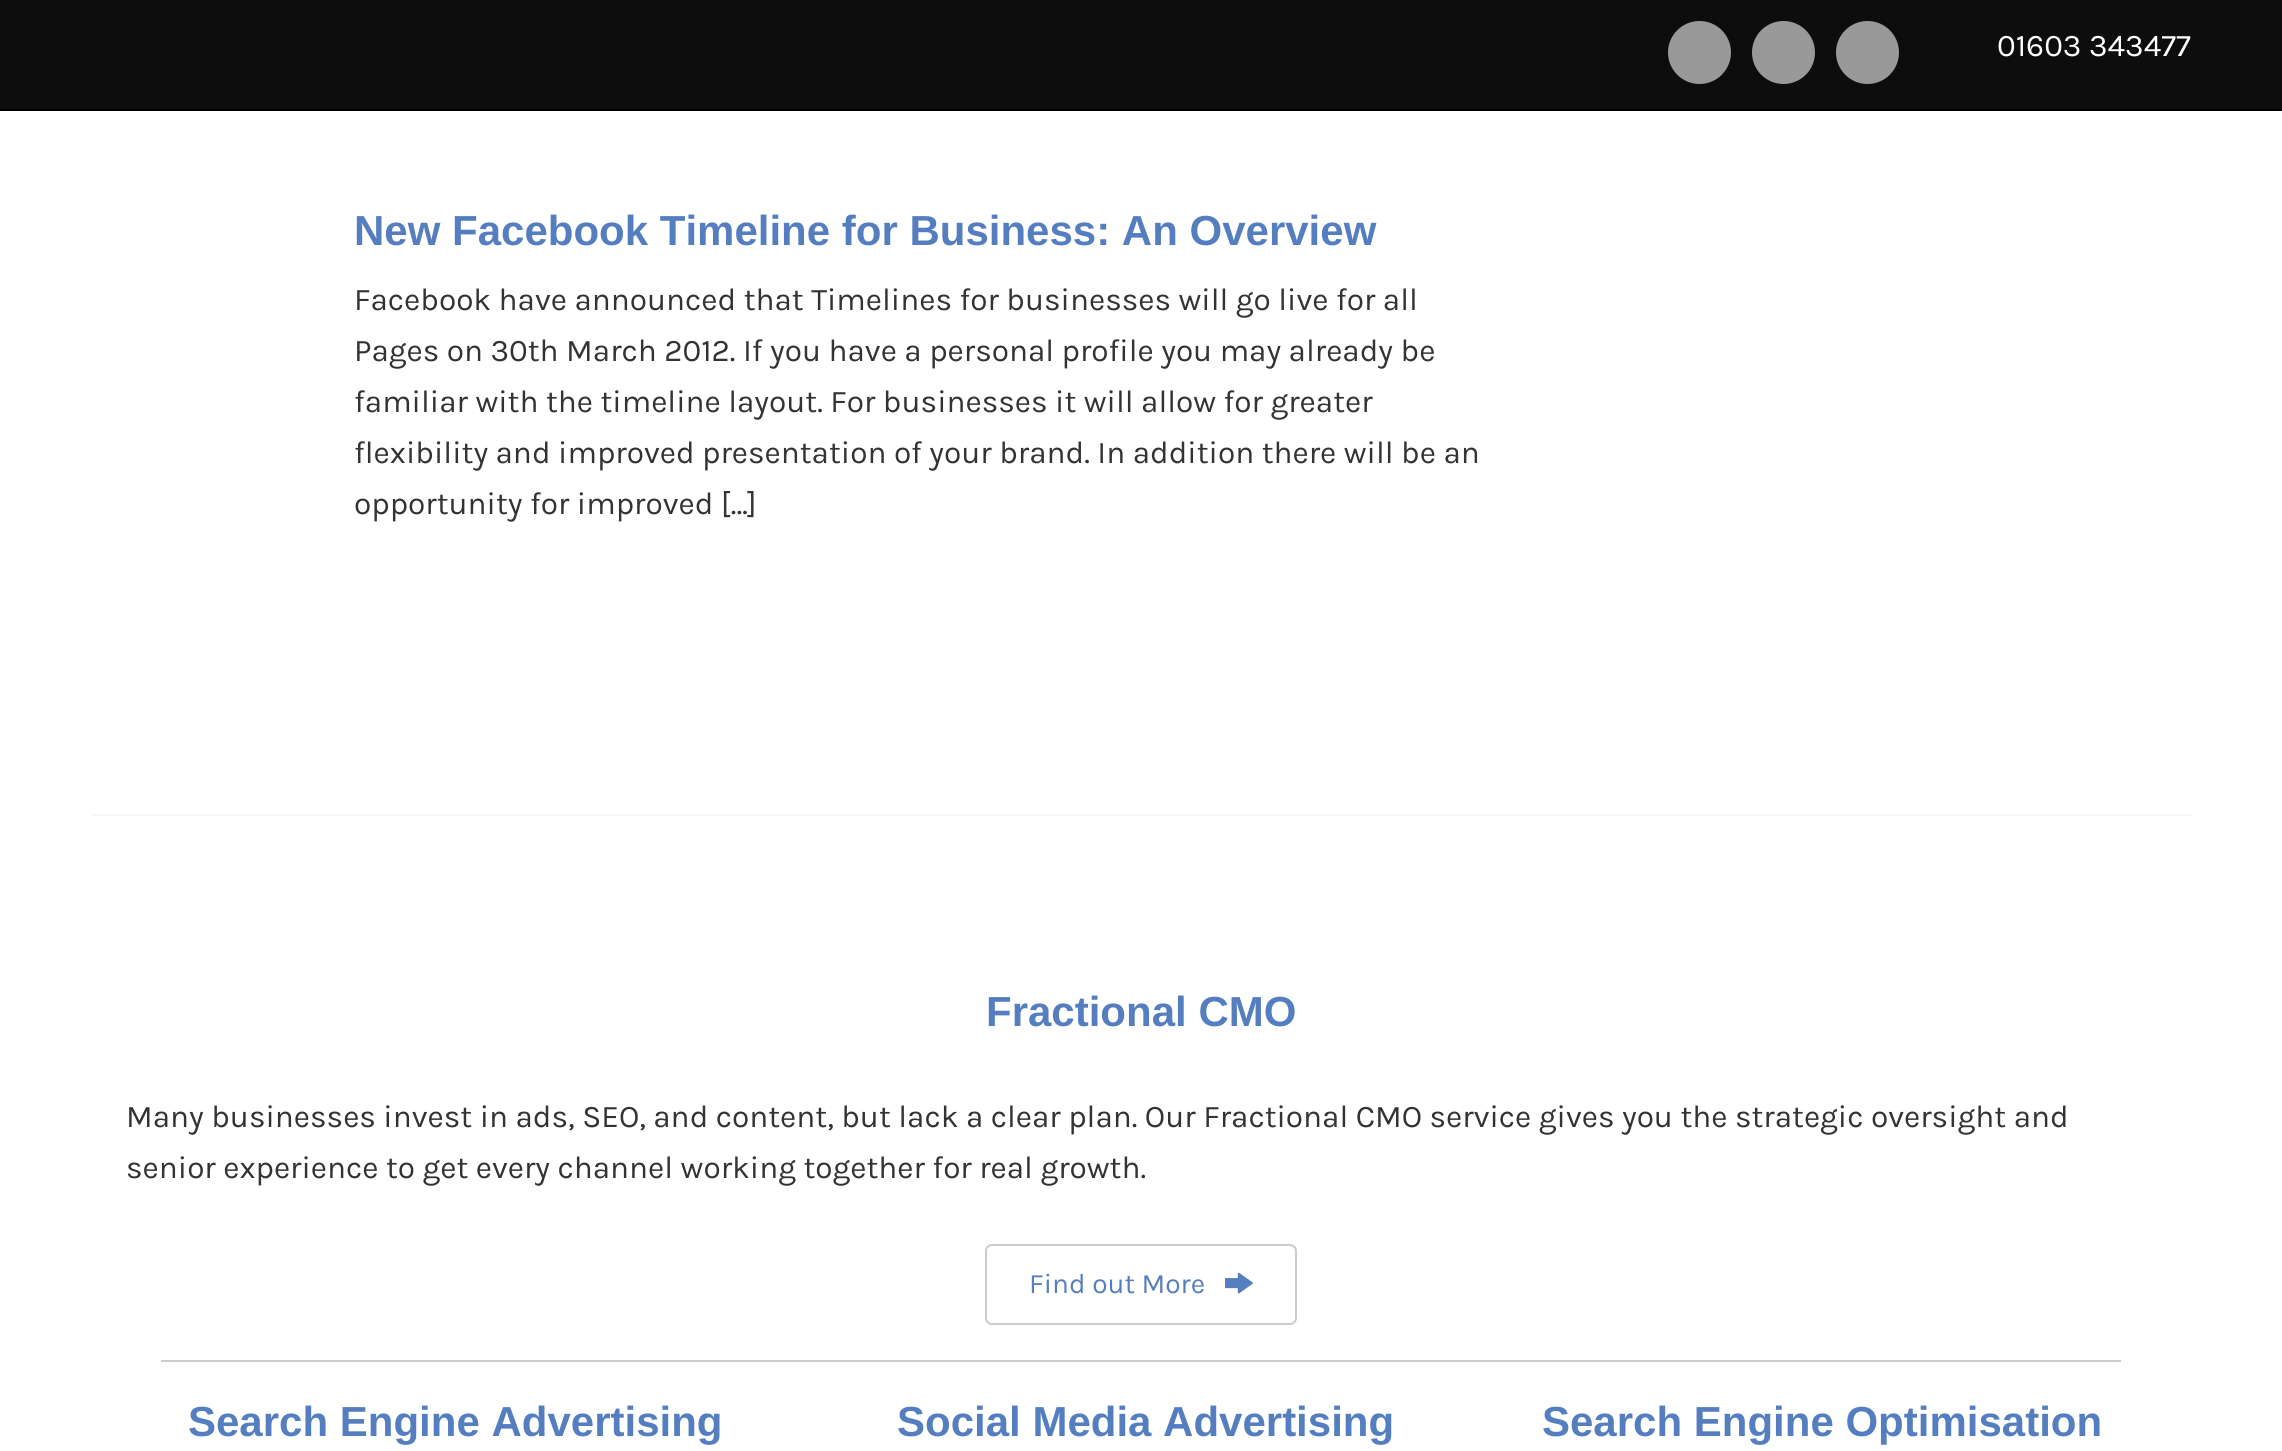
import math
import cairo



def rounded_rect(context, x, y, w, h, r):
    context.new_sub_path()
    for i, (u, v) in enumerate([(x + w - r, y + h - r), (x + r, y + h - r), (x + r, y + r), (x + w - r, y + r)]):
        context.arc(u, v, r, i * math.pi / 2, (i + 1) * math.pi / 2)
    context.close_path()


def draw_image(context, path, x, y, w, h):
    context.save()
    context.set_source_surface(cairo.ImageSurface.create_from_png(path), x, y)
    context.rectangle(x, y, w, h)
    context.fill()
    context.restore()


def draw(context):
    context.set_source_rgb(1, 1, 1)
    context.paint()
    context.set_source_rgb(13 / 255, 13 / 255, 13 / 255)
    context.rectangle(0, 0, 2282, 109)
    context.fill()
    context.set_source_rgb(0, 0, 0)
    context.rectangle(0, 109, 2282, 2)
    context.fill()
    context.set_source_rgb(153 / 255, 153 / 255, 153 / 255)
    context.arc(1699.5, 52.5, 31.5, 0, 2 * math.pi)
    context.fill()
    context.arc(1783.5, 52.5, 31.5, 0, 2 * math.pi)
    context.fill()
    context.arc(1867.5, 52.5, 31.5, 0, 2 * math.pi)
    context.fill()
    context.set_source_rgb(250 / 255, 247 / 255, 247 / 255)
    context.rectangle(91, 814, 2100, 2)
    context.fill()
    rounded_rect(context, 986, 1245, 310, 79, 6)
    context.set_source_rgb(204 / 255, 204 / 255, 204 / 255)
    context.stroke()
    draw_image(context, "images/1.png", 1225, 1272, 28, 22)
    context.rectangle(161, 1360, 1960, 2)
    context.fill()
    context.select_font_face("Karla")
    context.set_font_size(31.5)
    context.set_source_rgb(1, 1, 1)
    context.move_to(1997, 56)
    context.show_text("01603 343477")
    context.select_font_face("Liberation Sans", cairo.FontSlant.NORMAL, cairo.FontWeight.BOLD)
    context.set_font_size(42)
    context.set_source_rgb(85 / 255, 126 / 255, 192 / 255)
    context.move_to(354, 245)
    context.show_text("New Facebook Timeline for Business: An Overview")
    context.select_font_face("Karla")
    context.set_font_size(31.5)
    context.set_source_rgb(51 / 255, 51 / 255, 51 / 255)
    context.move_to(354, 310)
    context.show_text("Facebook have announced that Timelines for businesses will go live for all")
    context.move_to(354, 361)
    context.show_text("Pages on 30th March 2012. If you have a personal profile you may already be")
    context.move_to(354, 412)
    context.show_text("familiar with the timeline layout. For businesses it will allow for greater")
    context.move_to(354, 463)
    context.show_text("flexibility and improved presentation of your brand. In addition there will be an")
    context.move_to(354, 514)
    context.show_text("opportunity for improved […]")
    context.select_font_face("Liberation Sans", cairo.FontSlant.NORMAL, cairo.FontWeight.BOLD)
    context.set_font_size(42)
    context.set_source_rgb(85 / 255, 126 / 255, 192 / 255)
    context.move_to(986, 1026)
    context.show_text("Fractional CMO")
    context.select_font_face("Karla")
    context.set_font_size(31.5)
    context.set_source_rgb(51 / 255, 51 / 255, 51 / 255)
    context.move_to(126, 1127)
    context.show_text("Many businesses invest in ads, SEO, and content, but lack a clear plan. Our Fractional CMO service gives you the strategic oversight and")
    context.move_to(126, 1178)
    context.show_text("senior experience to get every channel working together for real growth.")
    context.set_font_size(28)
    context.set_source_rgb(85 / 255, 126 / 255, 192 / 255)
    context.move_to(1029, 1293)
    context.show_text("Find out More")
    context.select_font_face("Liberation Sans", cairo.FontSlant.NORMAL, cairo.FontWeight.BOLD)
    context.set_font_size(42)
    context.move_to(188, 1436)
    context.show_text("Search Engine Advertising")
    context.move_to(897, 1436)
    context.show_text("Social Media Advertising")
    context.move_to(1542, 1436)
    context.show_text("Search Engine Optimisation")


surface = cairo.ImageSurface(cairo.Format.RGB24, 2282, 1451)
context = cairo.Context(surface)
options = cairo.FontOptions()
options.set_hint_metrics(cairo.HintMetrics.OFF)
options.set_hint_style(cairo.HintStyle.NONE)
context.set_font_options(options)
context.set_miter_limit(4)
draw(context)
surface.write_to_png("out.png")
